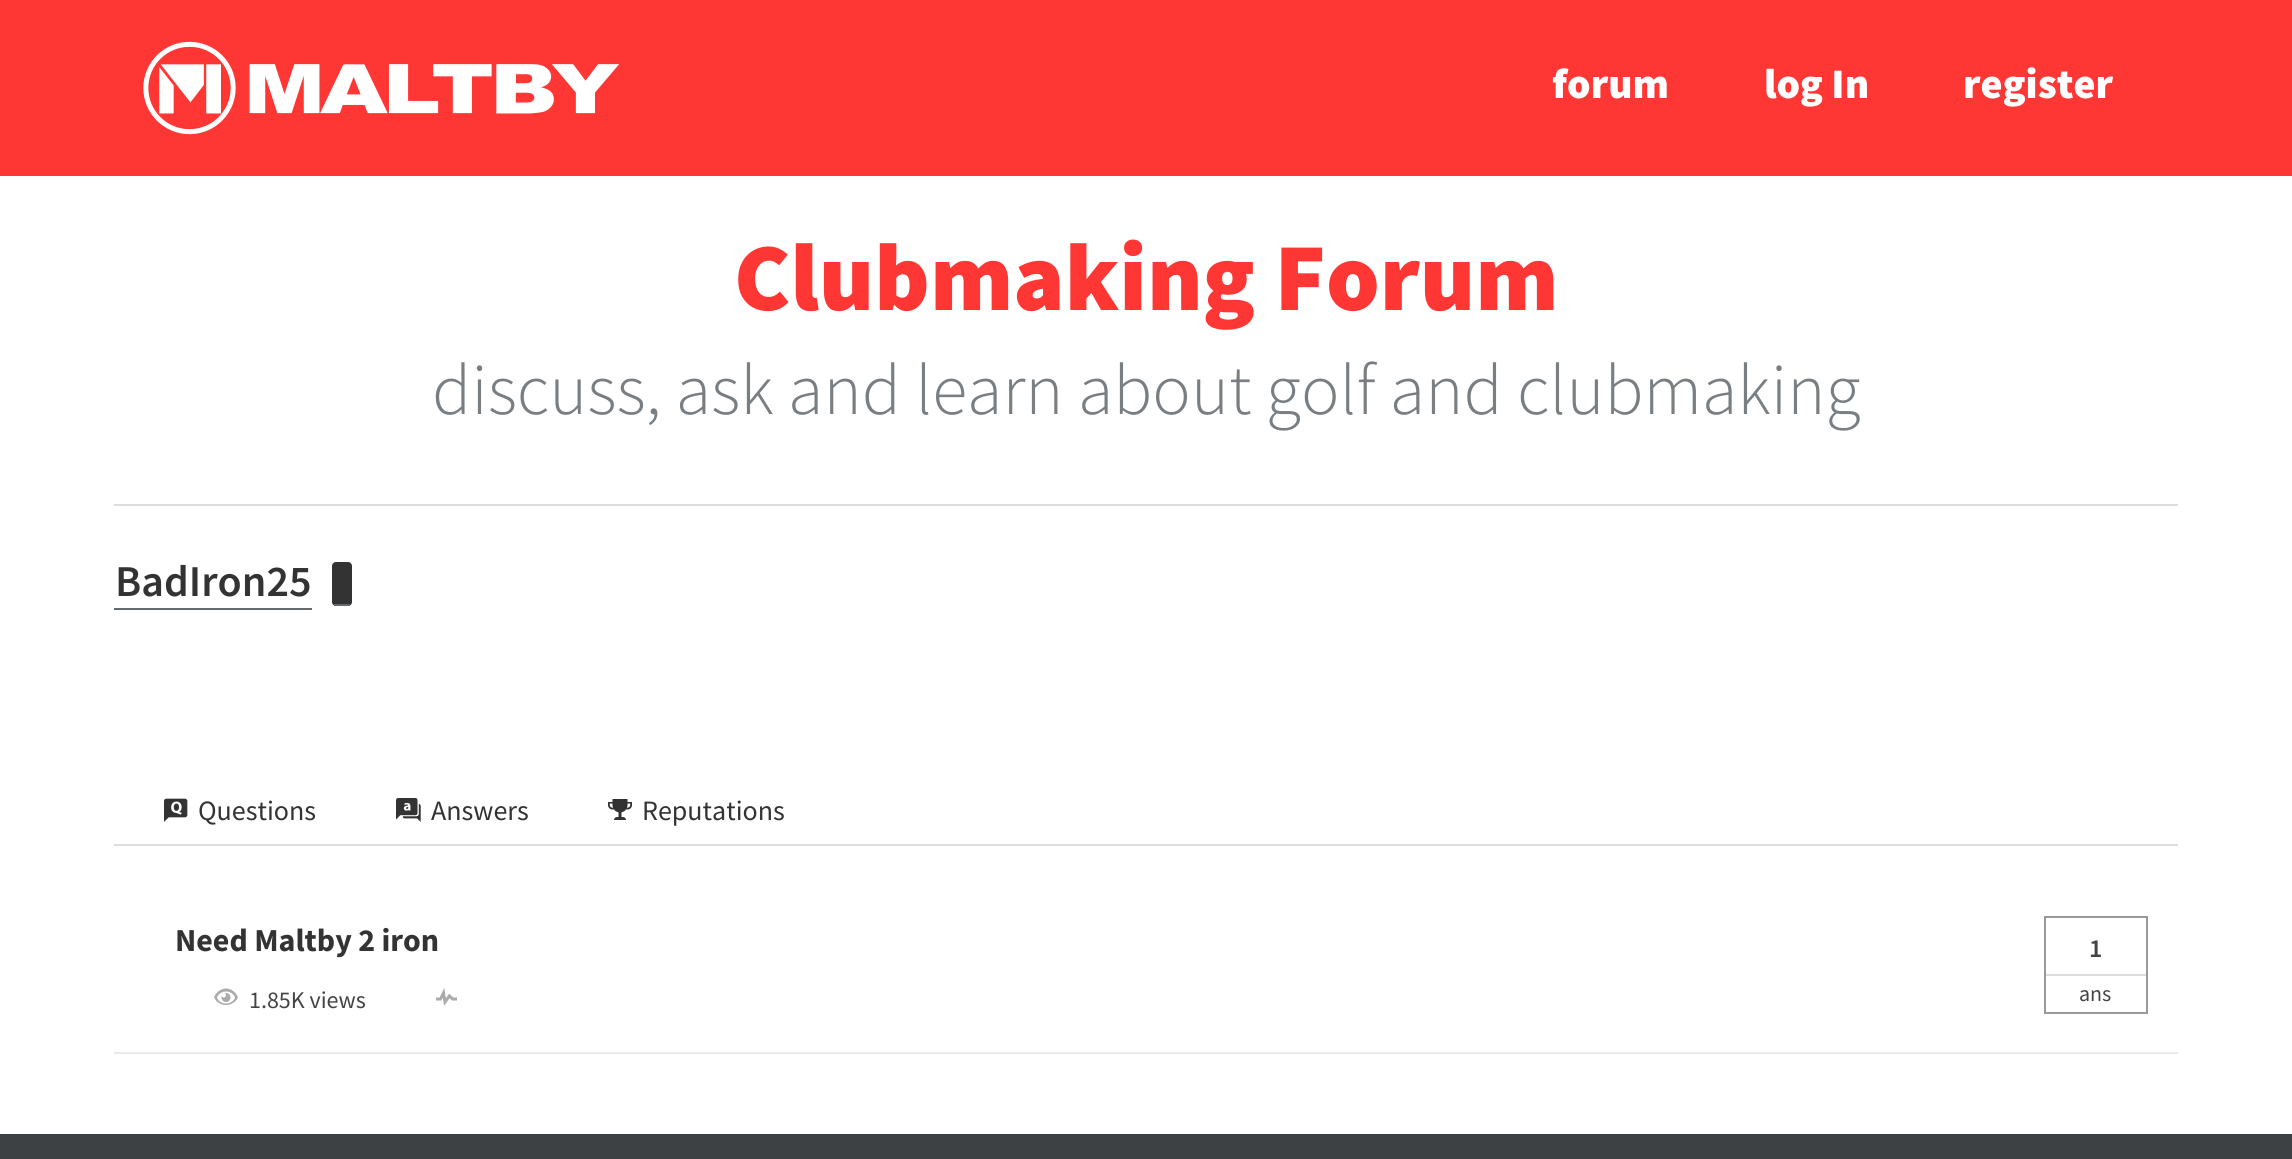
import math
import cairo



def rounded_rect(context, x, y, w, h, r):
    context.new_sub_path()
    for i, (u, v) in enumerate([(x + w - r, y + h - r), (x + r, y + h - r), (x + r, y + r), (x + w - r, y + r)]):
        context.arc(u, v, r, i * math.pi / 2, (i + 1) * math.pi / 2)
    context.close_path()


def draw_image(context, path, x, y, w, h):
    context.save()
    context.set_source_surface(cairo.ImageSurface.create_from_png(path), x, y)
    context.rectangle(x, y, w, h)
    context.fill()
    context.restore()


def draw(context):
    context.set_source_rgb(1, 1, 1)
    context.paint()
    context.set_source_rgb(1, 55 / 255, 52 / 255)
    context.rectangle(0, 0, 2292, 176)
    context.fill()
    draw_image(context, "images/1.png", 143, 41, 477, 94)
    context.set_source_rgb(221 / 255, 221 / 255, 221 / 255)
    context.rectangle(114, 504, 2064, 2)
    context.fill()
    context.set_source_rgb(101 / 255, 106 / 255, 110 / 255)
    context.rectangle(114, 608, 198, 2)
    context.fill()
    context.set_source_rgb(51 / 255, 51 / 255, 51 / 255)
    rounded_rect(context, 332, 562, 20, 44, 4)
    context.fill()
    context.set_source_rgb(101 / 255, 106 / 255, 110 / 255)
    context.rectangle(334, 604, 16, 2)
    context.fill()
    context.set_source_rgb(221 / 255, 221 / 255, 221 / 255)
    context.rectangle(114, 844, 2064, 2)
    context.fill()
    draw_image(context, "images/2.png", 164, 798, 24, 24)
    draw_image(context, "images/3.png", 396, 798, 25, 24)
    draw_image(context, "images/4.png", 608, 799, 24, 21)
    context.set_source_rgb(235 / 255, 235 / 255, 235 / 255)
    context.rectangle(114, 1052, 2064, 2)
    context.fill()
    draw_image(context, "images/5.png", 214, 988, 24, 17)
    draw_image(context, "images/6.png", 436, 988, 21, 18)
    context.rectangle(2045, 917, 102, 96)
    context.set_source_rgb(153 / 255, 153 / 255, 153 / 255)
    context.stroke()
    context.set_source_rgb(221 / 255, 221 / 255, 221 / 255)
    context.rectangle(2046, 974, 100, 2)
    context.fill()
    context.set_source_rgb(62 / 255, 65 / 255, 67 / 255)
    context.rectangle(0, 1134, 2292, 25)
    context.fill()
    context.select_font_face("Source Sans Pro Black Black")
    context.set_font_size(42)
    context.set_source_rgb(1, 1, 1)
    context.move_to(1552, 98)
    context.show_text("forum")
    context.move_to(1764, 98)
    context.show_text("log In")
    context.move_to(1963, 98)
    context.show_text("register")
    context.set_font_size(96)
    context.set_source_rgb(1, 55 / 255, 52 / 255)
    context.move_to(734, 310)
    context.show_text("Clubmaking Forum")
    context.select_font_face("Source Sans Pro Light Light")
    context.set_font_size(72)
    context.set_source_rgb(121 / 255, 126 / 255, 131 / 255)
    context.move_to(432, 414)
    context.show_text("discuss, ask and learn about golf and clubmaking")
    context.select_font_face("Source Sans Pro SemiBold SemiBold")
    context.set_font_size(44)
    context.set_source_rgb(51 / 255, 51 / 255, 51 / 255)
    context.move_to(115, 596)
    context.show_text("BadIron25")
    context.select_font_face("Source Sans Pro")
    context.set_font_size(28)
    context.move_to(198, 820)
    context.show_text("Questions")
    context.move_to(431, 820)
    context.show_text("Answers")
    context.move_to(642, 820)
    context.show_text("Reputations")
    context.select_font_face("Source Sans Pro", cairo.FontSlant.NORMAL, cairo.FontWeight.BOLD)
    context.set_font_size(32)
    context.move_to(175, 951)
    context.show_text("Need Maltby 2 iron")
    context.select_font_face("Source Sans Pro")
    context.set_font_size(24)
    context.set_source_rgb(68 / 255, 68 / 255, 68 / 255)
    context.move_to(249, 1008)
    context.show_text("1.85K views")
    context.select_font_face("Source Sans Pro SemiBold SemiBold")
    context.set_font_size(26)
    context.move_to(2089, 957)
    context.show_text("1")
    context.select_font_face("Source Sans Pro")
    context.set_font_size(22)
    context.move_to(2079, 1001)
    context.show_text("ans")


surface = cairo.ImageSurface(cairo.Format.RGB24, 2292, 1159)
context = cairo.Context(surface)
options = cairo.FontOptions()
options.set_hint_metrics(cairo.HintMetrics.OFF)
options.set_hint_style(cairo.HintStyle.NONE)
context.set_font_options(options)
context.set_miter_limit(4)
draw(context)
surface.write_to_png("out.png")
